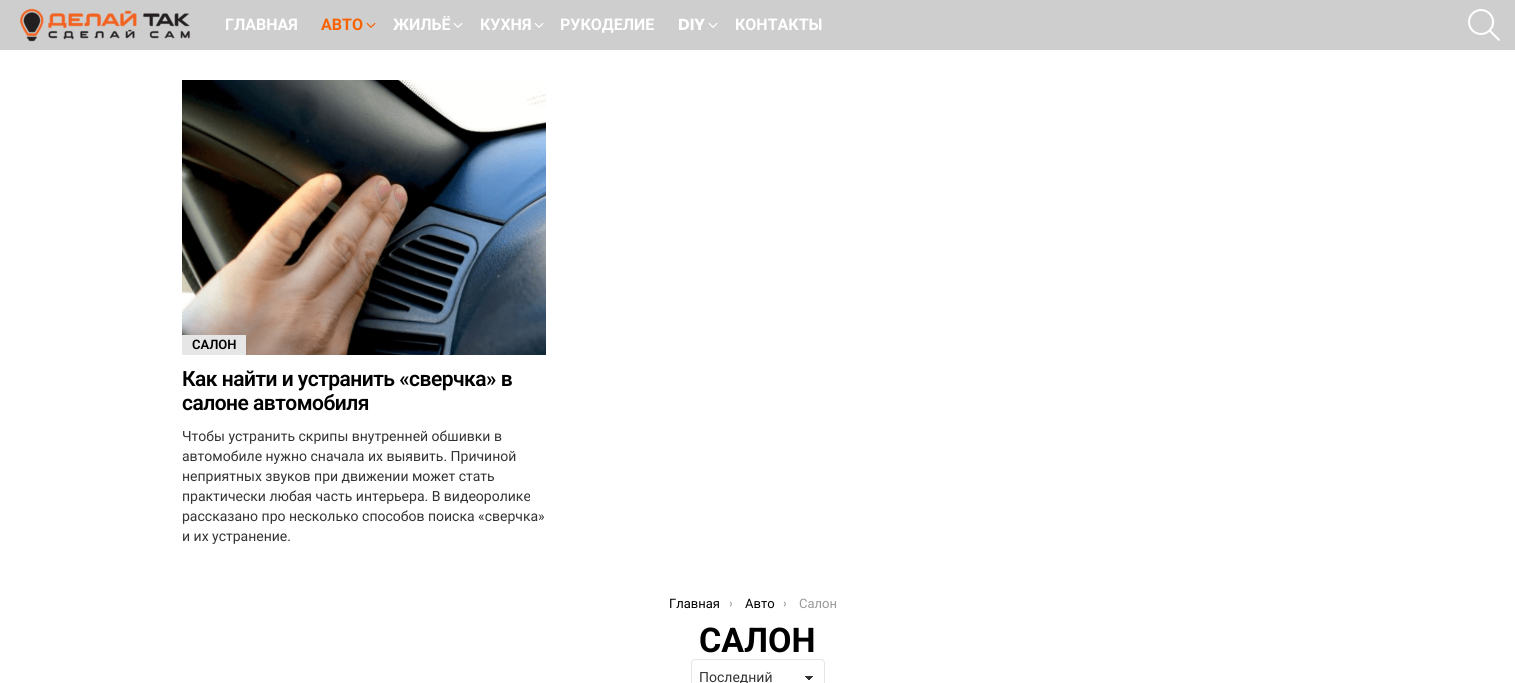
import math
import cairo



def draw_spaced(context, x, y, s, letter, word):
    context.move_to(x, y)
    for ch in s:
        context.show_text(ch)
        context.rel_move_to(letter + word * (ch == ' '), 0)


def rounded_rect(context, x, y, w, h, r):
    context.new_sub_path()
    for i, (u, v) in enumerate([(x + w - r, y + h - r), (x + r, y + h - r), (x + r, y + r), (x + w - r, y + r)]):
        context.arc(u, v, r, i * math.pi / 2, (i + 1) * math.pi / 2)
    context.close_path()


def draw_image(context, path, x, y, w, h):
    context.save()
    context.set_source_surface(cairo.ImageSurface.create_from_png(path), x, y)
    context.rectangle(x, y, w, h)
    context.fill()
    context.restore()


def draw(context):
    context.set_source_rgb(1, 1, 1)
    context.paint()
    context.set_source_rgb(206 / 255, 206 / 255, 206 / 255)
    context.rectangle(0, 0, 1515, 50)
    context.fill()
    draw_image(context, "images/1.png", 19, 8, 171, 34)
    draw_image(context, "images/2.png", 366, 22, 10, 6)
    draw_image(context, "images/3.png", 453, 23, 10, 5)
    draw_image(context, "images/3.png", 534, 23, 10, 5)
    draw_image(context, "images/3.png", 708, 23, 10, 5)
    draw_image(context, "images/4.png", 1468, 9, 32, 32)
    draw_image(context, "images/5.png", 182, 80, 364, 275)
    context.set_source_rgb(230 / 255, 230 / 255, 230 / 255)
    context.rectangle(182, 335, 64, 20)
    context.fill()
    gradient = cairo.LinearGradient(809, 676, 814, 680)
    gradient.add_color_stop_rgba(0.5, 51 / 255, 51 / 255, 51 / 255, 1)
    gradient.add_color_stop_rgba(0.5, 1, 1, 1, 1)
    context.set_source(gradient)
    context.rectangle(809, 676, 5, 4)
    context.fill()
    gradient = cairo.LinearGradient(804, 680, 809, 676)
    gradient.add_color_stop_rgba(0.5, 1, 1, 1, 1)
    gradient.add_color_stop_rgba(0.5, 51 / 255, 51 / 255, 51 / 255, 1)
    context.set_source(gradient)
    context.rectangle(804, 676, 5, 4)
    context.fill()
    rounded_rect(context, 691.5, 659.5, 133, 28, 3.5)
    context.set_source_rgb(230 / 255, 230 / 255, 230 / 255)
    context.set_line_width(1)
    context.stroke()
    context.select_font_face("Roboto", cairo.FontSlant.NORMAL, cairo.FontWeight.BOLD)
    context.set_font_size(16)
    context.set_source_rgb(1, 1, 1)
    context.move_to(225, 30)
    context.show_text("ГЛАВНАЯ")
    context.set_source_rgb(247 / 255, 98 / 255, 0)
    context.move_to(321, 30)
    context.show_text("АВТО")
    context.set_source_rgb(1, 1, 1)
    context.move_to(393, 30)
    context.show_text("ЖИЛЬЁ")
    context.move_to(480, 30)
    context.show_text("КУХНЯ")
    context.move_to(560, 30)
    context.show_text("РУКОДЕЛИЕ")
    context.select_font_face("Poppins", cairo.FontSlant.NORMAL, cairo.FontWeight.BOLD)
    context.move_to(678, 30)
    context.show_text("DIY")
    context.select_font_face("Roboto", cairo.FontSlant.NORMAL, cairo.FontWeight.BOLD)
    context.move_to(735, 30)
    context.show_text("КОНТАКТЫ")
    context.select_font_face("Roboto SemiBold")
    context.set_font_size(13)
    context.set_source_rgb(0, 0, 0)
    context.move_to(192, 349)
    context.show_text("САЛОН")
    context.set_font_size(21)
    draw_spaced(context, 182, 386, "Как найти и устранить «сверчка» в", -0.5, 0)
    draw_spaced(context, 182, 410, "салоне автомобиля", -0.5, 0)
    context.select_font_face("Roboto")
    context.set_font_size(14)
    context.set_source_rgb(51 / 255, 51 / 255, 51 / 255)
    context.move_to(182, 441)
    context.show_text("Чтобы устранить скрипы внутренней обшивки в")
    context.move_to(182, 461)
    context.show_text("автомобиле нужно сначала их выявить. Причиной")
    context.move_to(182, 481)
    context.show_text("неприятных звуков при движении может стать")
    context.move_to(182, 501)
    context.show_text("практически любая часть интерьера. В видеоролике")
    context.move_to(182, 521)
    context.show_text("рассказано про несколько способов поиска «сверчка»")
    context.move_to(182, 541)
    context.show_text("и их устранение.")
    context.set_font_size(13)
    context.set_source_rgb(0, 0, 0)
    context.move_to(669, 608)
    context.show_text("Главная")
    context.select_font_face("Poppins")
    context.set_source_rgb(153 / 255, 153 / 255, 153 / 255)
    context.move_to(729, 608)
    context.show_text("›")
    context.select_font_face("Roboto")
    context.set_source_rgb(0, 0, 0)
    context.move_to(745, 608)
    context.show_text("Авто")
    context.select_font_face("Poppins")
    context.set_source_rgb(153 / 255, 153 / 255, 153 / 255)
    context.move_to(783, 608)
    context.show_text("›")
    context.select_font_face("Roboto")
    context.move_to(799, 608)
    context.show_text("Салон")
    context.select_font_face("Roboto", cairo.FontSlant.NORMAL, cairo.FontWeight.BOLD)
    context.set_font_size(34)
    context.set_source_rgb(0, 0, 0)
    context.move_to(699, 652)
    context.show_text("САЛОН")
    context.select_font_face("Roboto")
    context.set_font_size(14)
    context.set_source_rgb(51 / 255, 51 / 255, 51 / 255)
    context.move_to(699, 682)
    context.show_text("Последний")


surface = cairo.ImageSurface(cairo.Format.RGB24, 1515, 683)
context = cairo.Context(surface)
options = cairo.FontOptions()
options.set_hint_metrics(cairo.HintMetrics.OFF)
options.set_hint_style(cairo.HintStyle.NONE)
context.set_font_options(options)
context.set_miter_limit(4)
draw(context)
surface.write_to_png("out.png")
